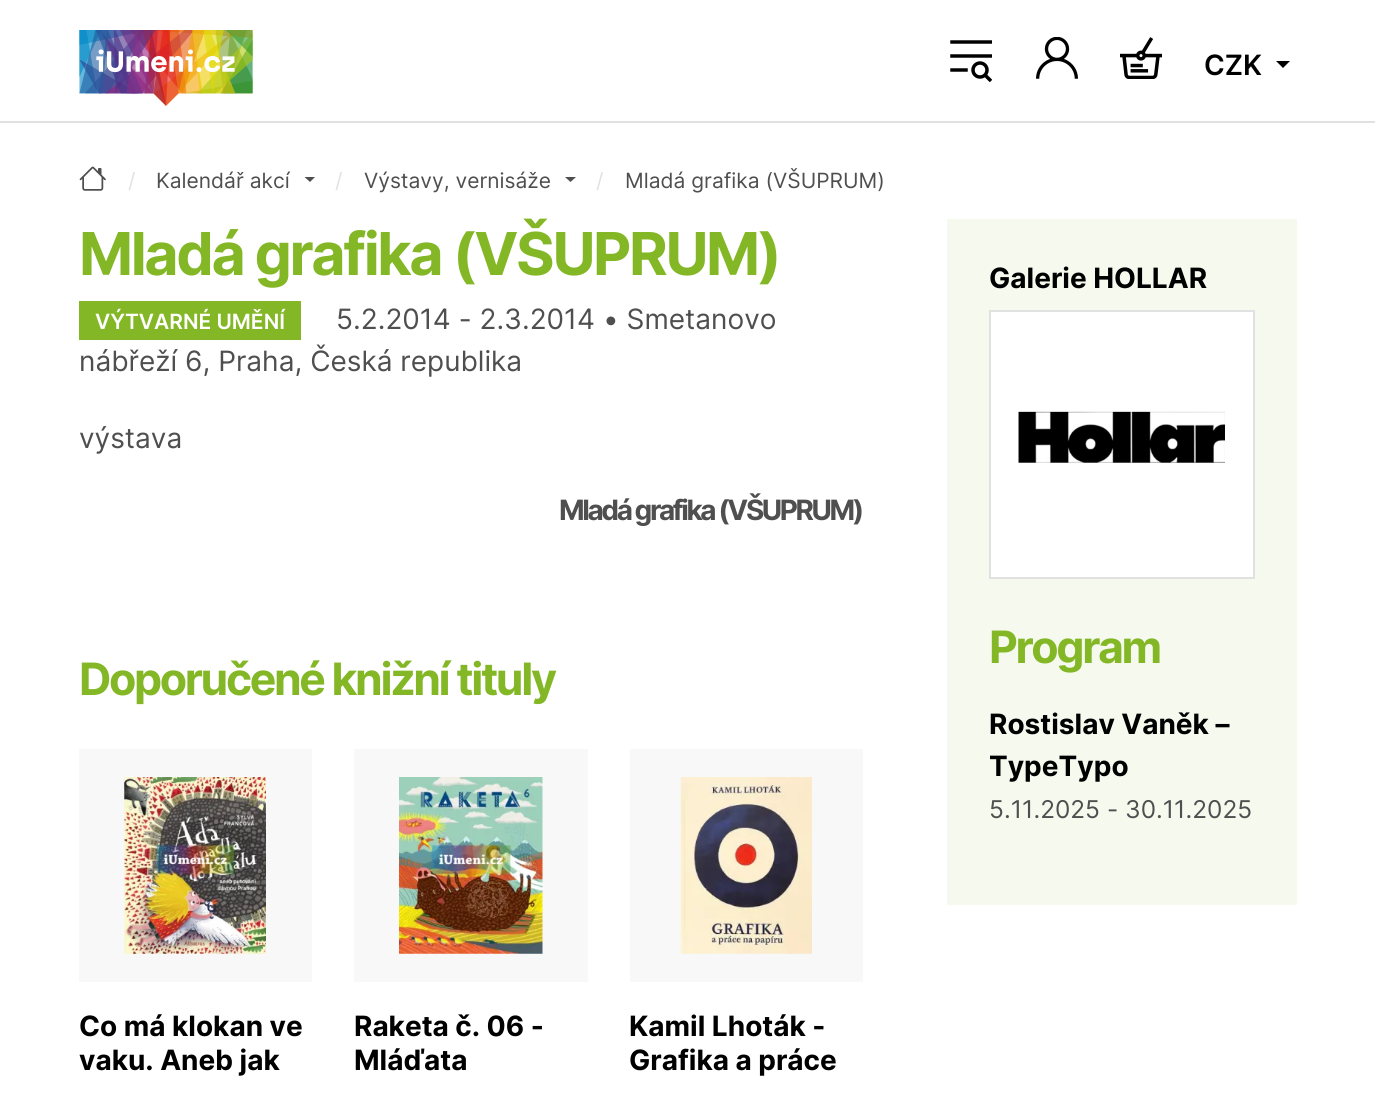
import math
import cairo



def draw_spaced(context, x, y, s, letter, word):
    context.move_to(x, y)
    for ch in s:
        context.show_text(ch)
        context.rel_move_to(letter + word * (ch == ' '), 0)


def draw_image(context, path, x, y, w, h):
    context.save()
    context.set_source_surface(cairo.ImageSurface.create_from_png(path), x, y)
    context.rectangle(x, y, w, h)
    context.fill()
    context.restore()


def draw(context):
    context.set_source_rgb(1, 1, 1)
    context.paint()
    context.set_source_rgb(225 / 255, 225 / 255, 225 / 255)
    context.rectangle(0, 121, 1375, 2)
    context.fill()
    draw_image(context, "images/1.png", 79, 30, 174, 76)
    draw_image(context, "images/2.png", 950, 40, 42, 42)
    draw_image(context, "images/3.png", 1036, 37, 42, 42)
    draw_image(context, "images/4.png", 1120, 37, 42, 42)
    context.set_source_rgb(0, 0, 0)
    context.new_path()
    context.move_to(1276, 61)
    context.line_to(1290, 61)
    context.line_to(1283, 68)
    context.close_path()
    context.fill()
    draw_image(context, "images/5.png", 79, 166, 27, 25)
    context.set_source_rgb(79 / 255, 79 / 255, 79 / 255)
    context.new_path()
    context.move_to(304.5, 177)
    context.line_to(315, 177)
    context.line_to(310, 182)
    context.close_path()
    context.fill()
    context.new_path()
    context.move_to(565, 177)
    context.line_to(576, 177)
    context.line_to(570.5, 182)
    context.close_path()
    context.fill()
    context.set_source_rgb(131 / 255, 183 / 255, 38 / 255)
    context.rectangle(79, 301, 222, 39)
    context.fill()
    context.set_source_rgb(248 / 255, 248 / 255, 248 / 255)
    context.rectangle(79, 749, 233, 233)
    context.fill()
    draw_image(context, "images/6.png", 124, 777, 142, 177)
    context.rectangle(354, 749, 234, 233)
    context.fill()
    draw_image(context, "images/7.png", 399, 777, 144, 177)
    context.rectangle(630, 749, 233, 233)
    context.fill()
    draw_image(context, "images/8.png", 680, 777, 132, 177)
    context.set_source_rgb(245 / 255, 249 / 255, 238 / 255)
    context.rectangle(947, 219, 350, 686)
    context.fill()
    context.set_source_rgb(1, 1, 1)
    context.rectangle(990, 311, 264, 267)
    context.fill_preserve()
    context.set_source_rgb(225 / 255, 225 / 255, 225 / 255)
    context.stroke()
    draw_image(context, "images/9.png", 1018, 411, 207, 52)
    context.select_font_face("Inter SemiBold")
    context.set_font_size(28)
    context.set_source_rgb(0, 0, 0)
    context.move_to(1204, 75)
    context.show_text("CZK")
    context.select_font_face("Inter")
    context.set_font_size(21)
    context.set_source_rgb(222 / 255, 226 / 255, 230 / 255)
    context.move_to(128, 188)
    context.show_text("/")
    context.set_source_rgb(79 / 255, 79 / 255, 79 / 255)
    context.move_to(156, 188)
    context.show_text("Kalendář akcí")
    context.set_source_rgb(222 / 255, 226 / 255, 230 / 255)
    context.move_to(335, 188)
    context.show_text("/")
    context.set_source_rgb(79 / 255, 79 / 255, 79 / 255)
    context.move_to(364, 188)
    context.show_text("Výstavy, vernisáže")
    context.set_source_rgb(222 / 255, 226 / 255, 230 / 255)
    context.move_to(596, 188)
    context.show_text("/")
    context.set_source_rgb(79 / 255, 79 / 255, 79 / 255)
    context.move_to(625, 188)
    context.show_text("Mladá grafika (VŠUPRUM)")
    context.select_font_face("Inter", cairo.FontSlant.NORMAL, cairo.FontWeight.BOLD)
    context.set_font_size(59.1)
    context.set_source_rgb(131 / 255, 183 / 255, 38 / 255)
    draw_spaced(context, 79, 275, "Mladá grafika (VŠUPRUM)", -2.4, 0)
    context.select_font_face("Inter SemiBold")
    context.set_font_size(21)
    context.set_source_rgb(1, 1, 1)
    context.move_to(95, 329)
    context.show_text("VÝTVARNÉ UMĚNÍ")
    context.select_font_face("Inter")
    context.set_font_size(28)
    context.set_source_rgb(79 / 255, 79 / 255, 79 / 255)
    context.move_to(336, 329)
    context.show_text("5.2.2014 - 2.3.2014 • Smetanovo")
    context.move_to(79, 371)
    context.show_text("nábřeží 6, Praha, Česká republika")
    context.move_to(79, 448)
    context.show_text("výstava")
    context.select_font_face("Inter", cairo.FontSlant.NORMAL, cairo.FontWeight.BOLD)
    draw_spaced(context, 559, 520, "Mladá grafika (VŠUPRUM)", -2.4, 0)
    context.set_font_size(44.6)
    context.set_source_rgb(131 / 255, 183 / 255, 38 / 255)
    draw_spaced(context, 79, 695, "Doporučené knižní tituly", -2.4, 0)
    context.set_font_size(28)
    context.set_source_rgb(0, 0, 0)
    context.move_to(79, 1036)
    context.show_text("Co má klokan ve")
    context.move_to(79, 1070)
    context.show_text("vaku. Aneb jak")
    context.move_to(354, 1036)
    context.show_text("Raketa č. 06 -")
    context.move_to(354, 1070)
    context.show_text("Mláďata")
    context.move_to(629, 1036)
    context.show_text("Kamil Lhoták -")
    context.move_to(629, 1070)
    context.show_text("Grafika a práce")
    context.move_to(989, 288)
    context.show_text("Galerie HOLLAR")
    context.set_font_size(44.6)
    context.set_source_rgb(131 / 255, 183 / 255, 38 / 255)
    draw_spaced(context, 989, 663, "Program", -2.4, 0)
    context.set_font_size(28)
    context.set_source_rgb(0, 0, 0)
    context.move_to(989, 734)
    context.show_text("Rostislav Vaněk –")
    context.move_to(989, 776)
    context.show_text("TypeTypo")
    context.select_font_face("Inter")
    context.set_font_size(24.5)
    context.set_source_rgb(79 / 255, 79 / 255, 79 / 255)
    context.move_to(989, 818)
    context.show_text("5.11.2025 - 30.11.2025")


surface = cairo.ImageSurface(cairo.Format.RGB24, 1375, 1094)
context = cairo.Context(surface)
options = cairo.FontOptions()
options.set_hint_metrics(cairo.HintMetrics.OFF)
options.set_hint_style(cairo.HintStyle.NONE)
context.set_font_options(options)
context.set_miter_limit(4)
draw(context)
surface.write_to_png("out.png")
